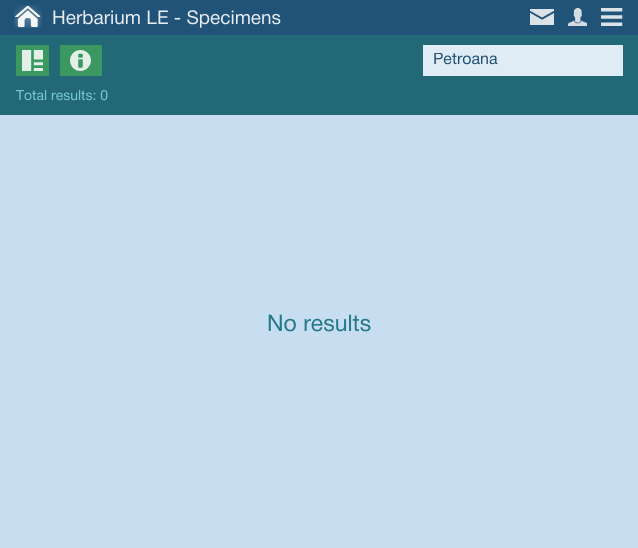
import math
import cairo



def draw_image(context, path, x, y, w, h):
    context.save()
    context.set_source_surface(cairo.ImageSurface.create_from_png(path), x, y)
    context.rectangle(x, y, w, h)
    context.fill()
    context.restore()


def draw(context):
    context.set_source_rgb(199 / 255, 222 / 255, 240 / 255)
    context.paint()
    context.set_source_rgb(33 / 255, 82 / 255, 120 / 255)
    context.rectangle(0, 0, 638, 35)
    context.fill()
    draw_image(context, "images/1.png", 14, 5, 28, 23)
    draw_image(context, "images/2.png", 530, 9, 24, 16)
    draw_image(context, "images/3.png", 568, 8, 19, 18)
    draw_image(context, "images/4.png", 601, 8, 22, 18)
    context.set_source_rgb(34 / 255, 104 / 255, 119 / 255)
    context.rectangle(0, 35, 638, 80)
    context.fill()
    context.set_source_rgb(60 / 255, 152 / 255, 97 / 255)
    context.rectangle(16, 45, 33, 31)
    context.fill()
    draw_image(context, "images/5.png", 22, 50, 21, 21)
    context.rectangle(60, 45, 42, 31)
    context.fill()
    draw_image(context, "images/6.png", 70, 50, 21, 21)
    context.set_source_rgb(223 / 255, 236 / 255, 246 / 255)
    context.rectangle(423, 45, 200, 31)
    context.fill()
    context.select_font_face("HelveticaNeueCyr")
    context.set_font_size(19)
    context.set_source_rgb(232 / 255, 237 / 255, 241 / 255)
    context.move_to(52, 24)
    context.show_text("Herbarium LE - Specimens")
    context.save()
    context.rectangle(433, 53, 180, 15)
    context.clip()
    context.set_font_size(16)
    context.set_source_rgb(31 / 255, 78 / 255, 114 / 255)
    context.move_to(433, 64)
    context.show_text("Petroana")
    context.restore()
    context.set_font_size(14)
    context.set_source_rgb(119 / 255, 201 / 255, 218 / 255)
    context.move_to(16, 100)
    context.show_text("Total results: 0")
    context.set_font_size(23)
    context.set_source_rgb(36 / 255, 120 / 255, 137 / 255)
    context.move_to(267, 331)
    context.show_text("No results")


surface = cairo.ImageSurface(cairo.Format.RGB24, 638, 548)
context = cairo.Context(surface)
options = cairo.FontOptions()
options.set_hint_metrics(cairo.HintMetrics.OFF)
options.set_hint_style(cairo.HintStyle.NONE)
context.set_font_options(options)
context.set_miter_limit(4)
draw(context)
surface.write_to_png("out.png")
